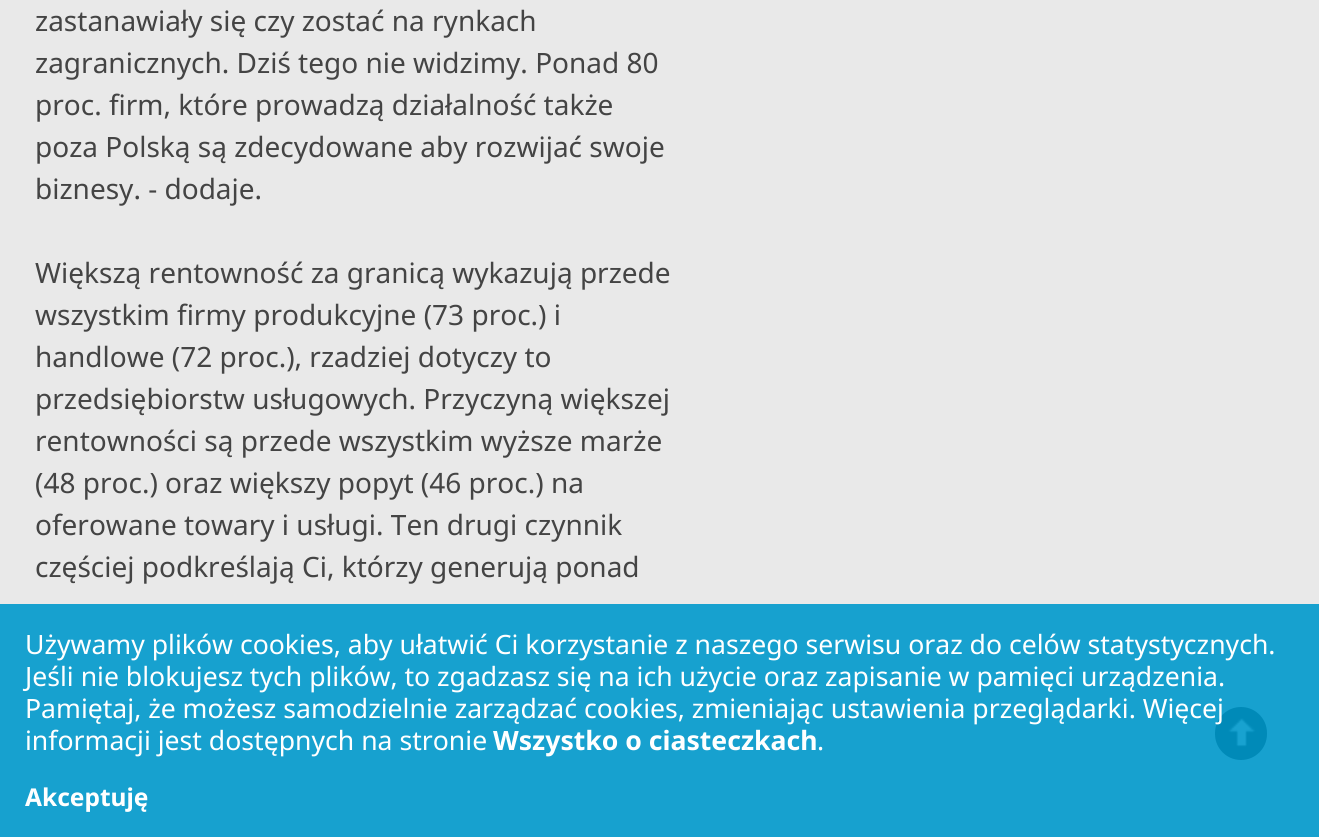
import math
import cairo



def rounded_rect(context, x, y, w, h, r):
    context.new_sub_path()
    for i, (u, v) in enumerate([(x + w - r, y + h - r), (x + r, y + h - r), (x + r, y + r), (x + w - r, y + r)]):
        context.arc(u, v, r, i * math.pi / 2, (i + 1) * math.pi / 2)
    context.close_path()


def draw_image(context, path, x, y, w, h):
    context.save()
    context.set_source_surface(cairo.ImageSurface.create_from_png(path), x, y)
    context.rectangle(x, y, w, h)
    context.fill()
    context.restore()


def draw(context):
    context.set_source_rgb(233 / 255, 233 / 255, 233 / 255)
    context.paint()
    context.set_source_rgb(0, 0, 0)
    rounded_rect(context, 1215, 707, 52, 53, 26)
    context.fill()
    draw_image(context, "images/1.png", 1228, 718, 28, 29)
    context.set_source_rgba(0, 153 / 255, 204 / 255, 0.9)
    context.rectangle(0, 604, 1319, 233)
    context.fill()
    context.select_font_face("Noto Sans")
    context.set_font_size(28)
    context.set_source_rgb(68 / 255, 68 / 255, 68 / 255)
    context.move_to(35, 31)
    context.show_text("zastanawiały się czy zostać na rynkach")
    context.move_to(35, 73)
    context.show_text("zagranicznych. Dziś tego nie widzimy. Ponad 80")
    context.move_to(35, 115)
    context.show_text("proc. firm, które prowadzą działalność także")
    context.move_to(35, 157)
    context.show_text("poza Polską są zdecydowane aby rozwijać swoje")
    context.move_to(35, 199)
    context.show_text("biznesy. - dodaje.")
    context.move_to(35, 283)
    context.show_text("Większą rentowność za granicą wykazują przede")
    context.move_to(35, 325)
    context.show_text("wszystkim firmy produkcyjne (73 proc.) i")
    context.move_to(35, 367)
    context.show_text("handlowe (72 proc.), rzadziej dotyczy to")
    context.move_to(35, 409)
    context.show_text("przedsiębiorstw usługowych. Przyczyną większej")
    context.move_to(35, 451)
    context.show_text("rentowności są przede wszystkim wyższe marże")
    context.move_to(35, 493)
    context.show_text("(48 proc.) oraz większy popyt (46 proc.) na")
    context.move_to(35, 535)
    context.show_text("oferowane towary i usługi. Ten drugi czynnik")
    context.move_to(35, 577)
    context.show_text("częściej podkreślają Ci, którzy generują ponad")
    context.set_font_size(26.6)
    context.set_source_rgb(1, 1, 1)
    context.move_to(25, 654)
    context.show_text("Używamy plików cookies, aby ułatwić Ci korzystanie z naszego serwisu oraz do celów statystycznych.")
    context.move_to(25, 686)
    context.show_text("Jeśli nie blokujesz tych plików, to zgadzasz się na ich użycie oraz zapisanie w pamięci urządzenia.")
    context.move_to(25, 718)
    context.show_text("Pamiętaj, że możesz samodzielnie zarządzać cookies, zmieniając ustawienia przeglądarki. Więcej")
    context.move_to(25, 750)
    context.show_text("informacji jest dostępnych na stronie")
    context.select_font_face("Noto Sans", cairo.FontSlant.NORMAL, cairo.FontWeight.BOLD)
    context.move_to(493, 750)
    context.show_text("Wszystko o ciasteczkach")
    context.select_font_face("Noto Sans")
    context.move_to(817, 750)
    context.show_text(".")
    context.select_font_face("Noto Sans", cairo.FontSlant.NORMAL, cairo.FontWeight.BOLD)
    context.set_font_size(24.5)
    context.move_to(25, 806)
    context.show_text("Akceptuję")


surface = cairo.ImageSurface(cairo.Format.RGB24, 1319, 837)
context = cairo.Context(surface)
options = cairo.FontOptions()
options.set_hint_metrics(cairo.HintMetrics.OFF)
options.set_hint_style(cairo.HintStyle.NONE)
context.set_font_options(options)
context.set_miter_limit(4)
draw(context)
surface.write_to_png("out.png")
